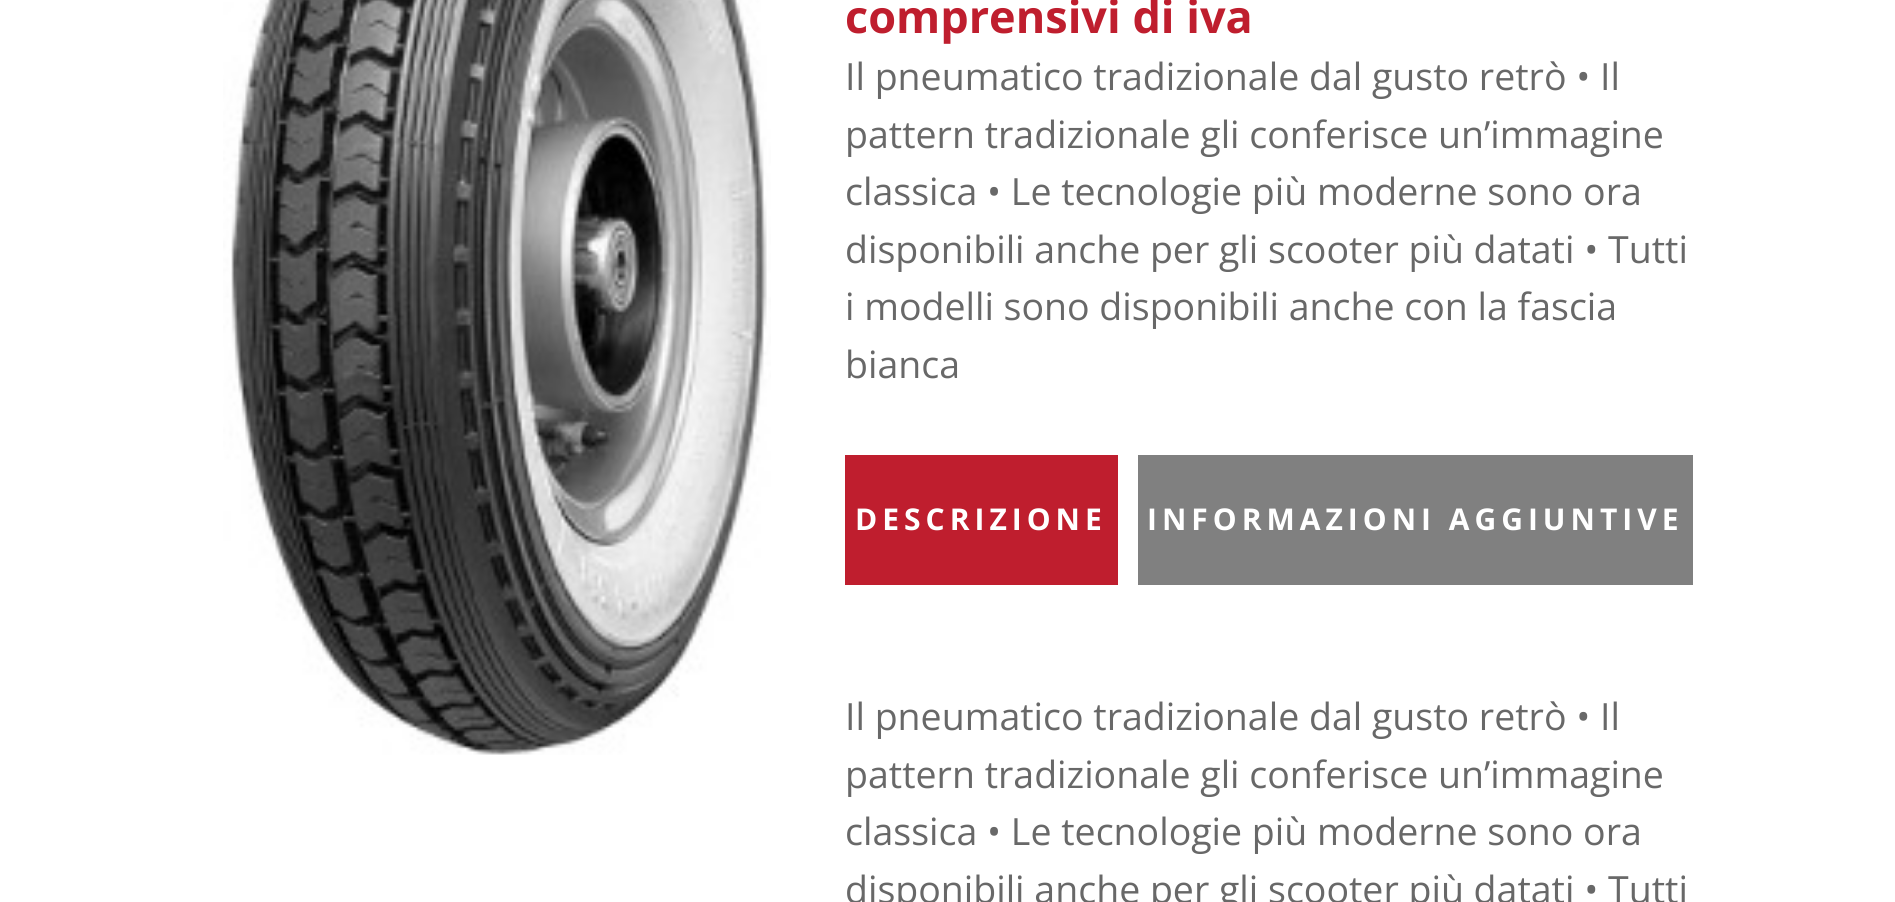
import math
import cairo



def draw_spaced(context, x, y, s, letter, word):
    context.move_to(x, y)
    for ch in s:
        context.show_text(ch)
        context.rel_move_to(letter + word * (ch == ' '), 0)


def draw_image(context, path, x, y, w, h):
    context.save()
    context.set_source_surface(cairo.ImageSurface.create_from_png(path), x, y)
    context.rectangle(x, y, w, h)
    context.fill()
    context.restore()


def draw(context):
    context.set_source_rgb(1, 1, 1)
    context.paint()
    draw_image(context, "images/1.png", 223, 0, 548, 755)
    context.set_source_rgb(191 / 255, 30 / 255, 46 / 255)
    context.rectangle(845, 455, 273, 130)
    context.fill()
    context.set_source_rgb(128 / 255, 128 / 255, 128 / 255)
    context.rectangle(1138, 455, 555, 130)
    context.fill()
    context.select_font_face("Open Sans", cairo.FontSlant.NORMAL, cairo.FontWeight.BOLD)
    context.set_font_size(45)
    context.set_source_rgb(191 / 255, 30 / 255, 46 / 255)
    context.move_to(845, 33)
    context.show_text("comprensivi di iva")
    context.select_font_face("Open Sans")
    context.set_font_size(37.5)
    context.set_source_rgb(104 / 255, 104 / 255, 104 / 255)
    context.move_to(845, 90)
    context.show_text("Il pneumatico tradizionale dal gusto retrò • Il")
    context.move_to(845, 148)
    context.show_text("pattern tradizionale gli conferisce un’immagine")
    context.move_to(845, 205)
    context.show_text("classica • Le tecnologie più moderne sono ora")
    context.move_to(845, 263)
    context.show_text("disponibili anche per gli scooter più datati • Tutti")
    context.move_to(845, 320)
    context.show_text("i modelli sono disponibili anche con la fascia")
    context.move_to(845, 378)
    context.show_text("bianca")
    context.select_font_face("Open Sans", cairo.FontSlant.NORMAL, cairo.FontWeight.BOLD)
    context.set_font_size(30)
    context.set_source_rgb(1, 1, 1)
    draw_spaced(context, 855, 530, "DESCRIZIONE", 5, 0)
    draw_spaced(context, 1147, 530, "INFORMAZIONI AGGIUNTIVE", 5, 0)
    context.select_font_face("Open Sans")
    context.set_font_size(37.5)
    context.set_source_rgb(104 / 255, 104 / 255, 104 / 255)
    context.move_to(845, 730)
    context.show_text("Il pneumatico tradizionale dal gusto retrò • Il")
    context.move_to(845, 788)
    context.show_text("pattern tradizionale gli conferisce un’immagine")
    context.move_to(845, 845)
    context.show_text("classica • Le tecnologie più moderne sono ora")
    context.move_to(845, 903)
    context.show_text("disponibili anche per gli scooter più datati • Tutti")


surface = cairo.ImageSurface(cairo.Format.RGB24, 1895, 902)
context = cairo.Context(surface)
options = cairo.FontOptions()
options.set_hint_metrics(cairo.HintMetrics.OFF)
options.set_hint_style(cairo.HintStyle.NONE)
context.set_font_options(options)
context.set_miter_limit(4)
draw(context)
surface.write_to_png("out.png")
